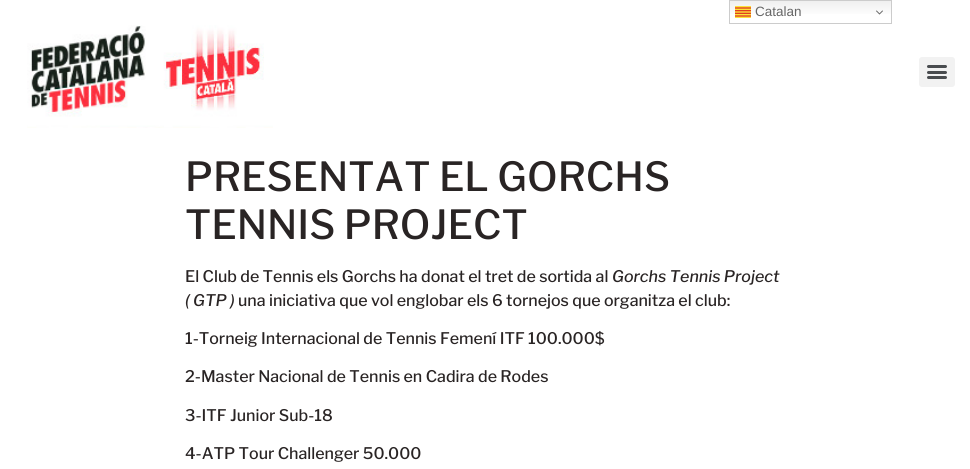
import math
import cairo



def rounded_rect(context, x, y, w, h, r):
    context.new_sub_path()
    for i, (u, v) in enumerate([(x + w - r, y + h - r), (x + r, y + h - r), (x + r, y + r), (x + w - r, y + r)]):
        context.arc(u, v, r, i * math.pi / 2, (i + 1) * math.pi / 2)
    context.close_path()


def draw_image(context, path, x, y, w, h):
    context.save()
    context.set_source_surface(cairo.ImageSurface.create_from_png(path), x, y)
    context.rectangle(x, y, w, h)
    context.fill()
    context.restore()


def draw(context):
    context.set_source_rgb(1, 1, 1)
    context.paint()
    gradient = cairo.LinearGradient(811, 0, 811, 24)
    gradient.add_color_stop_rgba(0, 239 / 255, 239 / 255, 239 / 255, 1)
    gradient.add_color_stop_rgba(0.7, 1, 1, 1, 1)
    context.set_source(gradient)
    context.rectangle(730, 1, 161, 13)
    context.fill()
    context.rectangle(729.5, 0.5, 162, 23)
    context.set_source_rgb(204 / 255, 204 / 255, 204 / 255)
    context.set_line_width(1)
    context.stroke()
    draw_image(context, "images/1.png", 735, 6, 16, 12)
    draw_image(context, "images/2.png", 876, 10, 7, 5)
    draw_image(context, "images/3.png", 27, 25, 246, 103)
    context.set_source_rgb(242 / 255, 242 / 255, 242 / 255)
    rounded_rect(context, 919, 57, 36, 30, 3)
    context.fill()
    context.set_source_rgb(73 / 255, 76 / 255, 79 / 255)
    rounded_rect(context, 927, 71, 20, 3, 1.5)
    context.fill()
    rounded_rect(context, 927, 65, 20, 3, 1.5)
    context.fill()
    rounded_rect(context, 927, 76, 20, 3, 1.5)
    context.fill()
    context.select_font_face("Liberation Sans")
    context.set_font_size(13.5)
    context.set_source_rgb(102 / 255, 102 / 255, 102 / 255)
    context.move_to(755, 16)
    context.show_text("Catalan")
    context.select_font_face("Libre Franklin Medium")
    context.set_font_size(40)
    context.set_source_rgb(41 / 255, 36 / 255, 36 / 255)
    context.move_to(185, 191)
    context.show_text("PRESENTAT EL GORCHS")
    context.move_to(185, 239)
    context.show_text("TENNIS PROJECT")
    context.set_font_size(16)
    context.move_to(185, 282)
    context.show_text("El Club de Tennis els Gorchs ha donat el tret de sortida al")
    context.select_font_face("Libre Franklin Medium", cairo.FontSlant.ITALIC)
    context.move_to(612, 282)
    context.show_text("Gorchs Tennis Project")
    context.move_to(185, 306)
    context.show_text("( GTP )")
    context.select_font_face("Libre Franklin Medium")
    context.move_to(238, 306)
    context.show_text("una iniciativa que vol englobar els 6 tornejos que organitza el club:")
    context.move_to(185, 344)
    context.show_text("1-Torneig Internacional de Tennis Femení ITF 100.000$")
    context.move_to(185, 382)
    context.show_text("2-Master Nacional de Tennis en Cadira de Rodes")
    context.move_to(185, 421)
    context.show_text("3-ITF Junior Sub-18")
    context.move_to(185, 459)
    context.show_text("4-ATP Tour Challenger 50.000")


surface = cairo.ImageSurface(cairo.Format.RGB24, 970, 469)
context = cairo.Context(surface)
options = cairo.FontOptions()
options.set_hint_metrics(cairo.HintMetrics.OFF)
options.set_hint_style(cairo.HintStyle.NONE)
context.set_font_options(options)
context.set_miter_limit(4)
draw(context)
surface.write_to_png("out.png")
